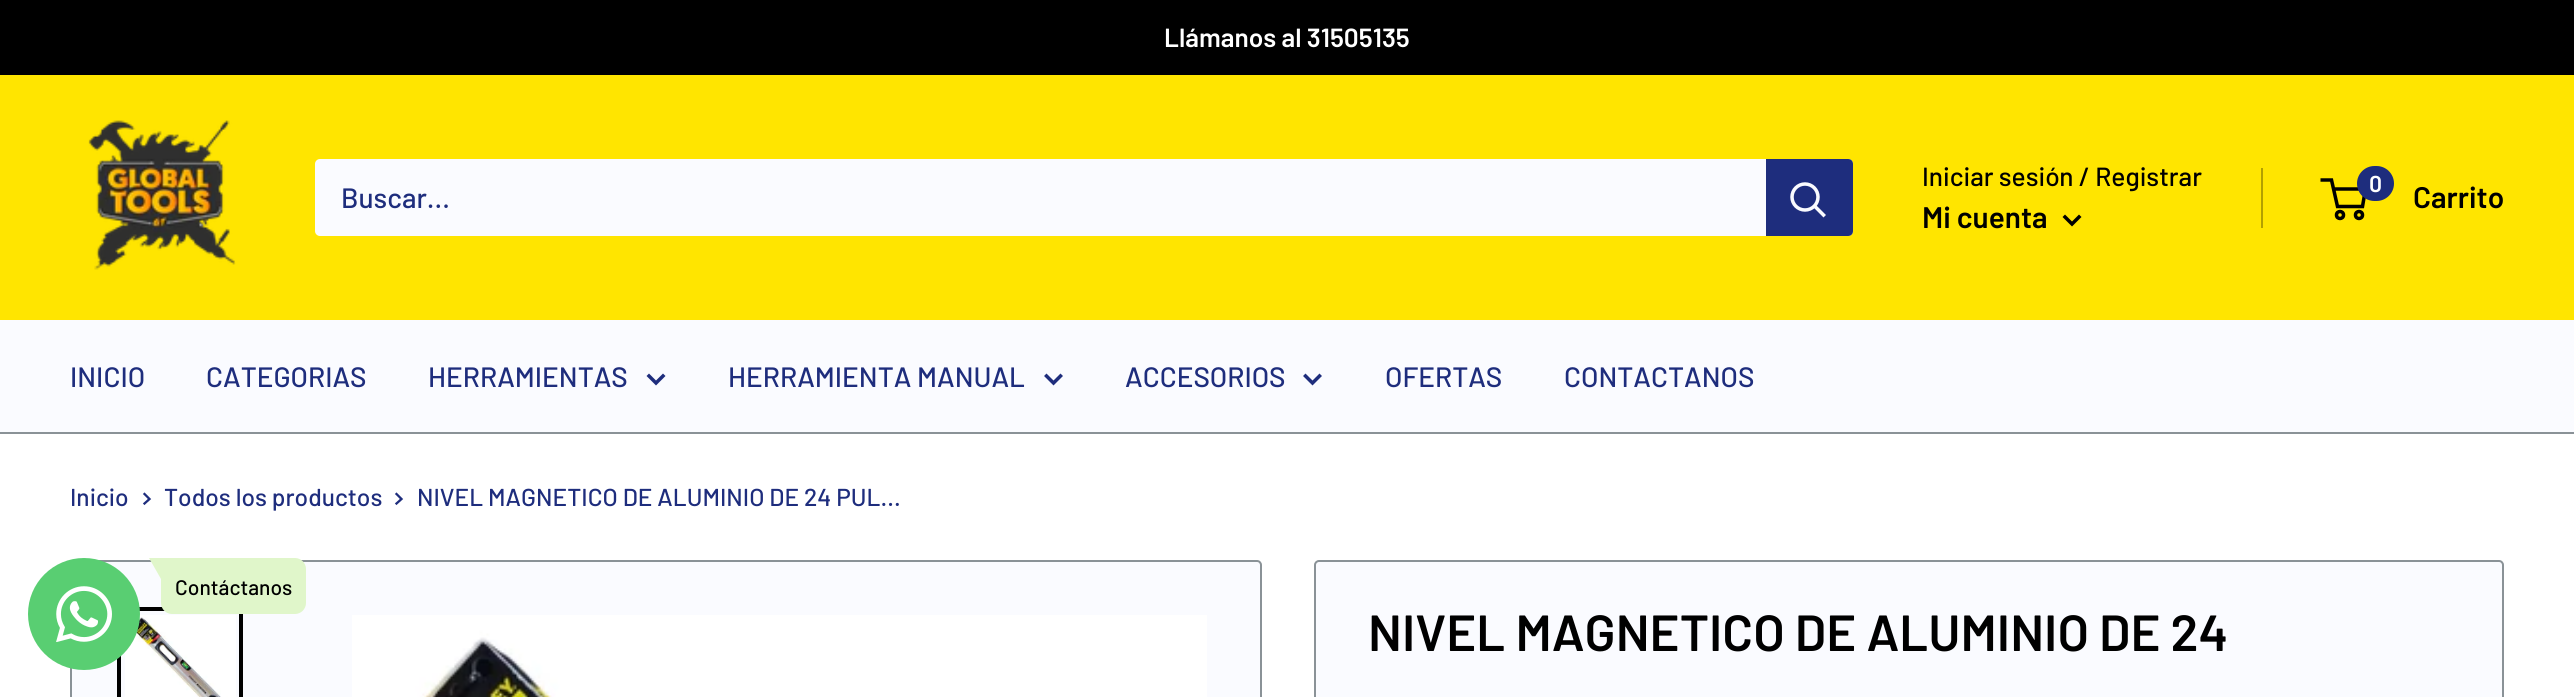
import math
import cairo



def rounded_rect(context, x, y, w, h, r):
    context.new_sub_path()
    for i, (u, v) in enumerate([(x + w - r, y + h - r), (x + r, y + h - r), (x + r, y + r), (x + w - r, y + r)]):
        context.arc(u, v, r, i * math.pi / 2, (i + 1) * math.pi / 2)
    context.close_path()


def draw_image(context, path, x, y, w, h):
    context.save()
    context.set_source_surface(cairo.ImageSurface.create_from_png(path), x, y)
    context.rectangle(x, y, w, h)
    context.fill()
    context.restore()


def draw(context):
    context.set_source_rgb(1, 1, 1)
    context.paint()
    context.set_source_rgb(0, 0, 0)
    context.rectangle(0, 0, 2574, 75)
    context.fill()
    context.set_source_rgb(1, 229 / 255, 0)
    context.rectangle(0, 75, 2574, 245)
    context.fill()
    draw_image(context, "images/1.png", 88, 120, 148, 150)
    context.set_source_rgb(250 / 255, 251 / 255, 1)
    rounded_rect(context, 315, 159, 1538, 77, 5)
    context.fill()
    context.set_source_rgb(30 / 255, 45 / 255, 125 / 255)
    context.new_path()
    context.move_to(1766, 159)
    context.line_to(1848, 159)
    context.curve_to(1851, 159, 1853, 161, 1853, 164)
    context.line_to(1853, 231)
    context.curve_to(1853, 234, 1851, 236, 1848, 236)
    context.line_to(1766, 236)
    context.close_path()
    context.fill()
    context.new_path()
    context.move_to(1823.5, 215)
    context.line_to(1815, 206.5)
    context.set_source_rgb(250 / 255, 251 / 255, 1)
    context.set_line_width(3.5)
    context.set_line_cap(cairo.LineCap.SQUARE)
    context.stroke()
    context.arc(1805, 197, 13, 0, 2 * math.pi)
    context.set_line_cap(cairo.LineCap.BUTT)
    context.stroke()
    context.set_source_rgb(179 / 255, 160 / 255, 0)
    context.rectangle(2261, 168, 2, 60)
    context.fill()
    context.new_path()
    context.move_to(2079, 217)
    context.line_to(2072, 224)
    context.line_to(2065, 217)
    context.set_source_rgb(0, 0, 0)
    context.set_line_cap(cairo.LineCap.SQUARE)
    context.stroke()
    context.arc(2340, 215, 3.5, 0, 2 * math.pi)
    context.set_line_cap(cairo.LineCap.BUTT)
    context.stroke()
    context.arc(2359, 215, 3.5, 0, 2 * math.pi)
    context.stroke()
    context.new_path()
    context.move_to(2333.5, 189)
    context.line_to(2365.5, 189)
    context.line_to(2362.5, 206.5)
    context.line_to(2337.5, 206.5)
    context.line_to(2331.5, 180)
    context.line_to(2320.5, 180)
    context.stroke()
    context.set_source_rgb(30 / 255, 45 / 255, 125 / 255)
    rounded_rect(context, 2357, 166, 37, 35, 17.5)
    context.fill()
    context.set_source_rgb(250 / 255, 251 / 255, 1)
    context.rectangle(0, 320, 2574, 112)
    context.fill()
    context.set_source_rgb(138 / 255, 146 / 255, 151 / 255)
    context.rectangle(0, 432, 2574, 2)
    context.fill()
    context.new_path()
    context.move_to(663, 376)
    context.line_to(656, 383)
    context.line_to(649, 376)
    context.set_source_rgb(30 / 255, 45 / 255, 125 / 255)
    context.set_line_cap(cairo.LineCap.SQUARE)
    context.stroke()
    context.new_path()
    context.move_to(1060.5, 376)
    context.line_to(1053.5, 383)
    context.line_to(1046.5, 376)
    context.stroke()
    context.new_path()
    context.move_to(1319.5, 376)
    context.line_to(1312.5, 383)
    context.line_to(1305.5, 376)
    context.stroke()
    context.new_path()
    context.move_to(144.5, 494)
    context.line_to(149.5, 499)
    context.line_to(144.5, 503.5)
    context.set_line_width(2.3)
    context.stroke()
    context.new_path()
    context.move_to(396.5, 494)
    context.line_to(401.5, 499)
    context.line_to(396.5, 503.5)
    context.stroke()
    context.set_source_rgb(250 / 255, 251 / 255, 1)
    rounded_rect(context, 71, 561, 1190, 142, 4)
    context.fill_preserve()
    context.set_source_rgb(138 / 255, 146 / 255, 151 / 255)
    context.set_line_width(2)
    context.set_line_cap(cairo.LineCap.BUTT)
    context.stroke()
    context.rectangle(119, 609, 122, 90)
    context.set_source_rgb(0, 0, 0)
    context.set_line_width(4)
    context.stroke()
    draw_image(context, "images/2.png", 125, 615, 111, 82)
    draw_image(context, "images/3.png", 352, 615, 855, 82)
    context.set_source_rgb(250 / 255, 251 / 255, 1)
    rounded_rect(context, 1315, 561, 1188, 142, 4)
    context.fill_preserve()
    context.set_source_rgb(138 / 255, 146 / 255, 151 / 255)
    context.set_line_width(2)
    context.stroke()
    context.set_source_rgb(89 / 255, 206 / 255, 114 / 255)
    context.arc(84, 614, 56, 0, 2 * math.pi)
    context.fill()
    draw_image(context, "images/4.png", 56, 586, 56, 56)
    context.set_source_rgb(224 / 255, 246 / 255, 202 / 255)
    context.new_path()
    context.move_to(161, 558)
    context.line_to(295, 558)
    context.curve_to(301, 558, 306, 563, 306, 569)
    context.line_to(306, 603)
    context.curve_to(306, 609, 301, 614, 295, 614)
    context.line_to(172, 614)
    context.curve_to(166, 614, 161, 609, 161, 603)
    context.close_path()
    context.fill()
    context.new_path()
    context.move_to(149, 558)
    context.line_to(161, 558)
    context.line_to(161, 579)
    context.close_path()
    context.fill()
    context.select_font_face("Barlow SemiBold")
    context.set_font_size(26.25)
    context.set_source_rgb(1, 1, 1)
    context.move_to(1164, 47)
    context.show_text("Llámanos al 31505135")
    context.select_font_face("Barlow Medium")
    context.set_font_size(28)
    context.set_source_rgb(30 / 255, 45 / 255, 125 / 255)
    context.move_to(341, 208)
    context.show_text("Buscar...")
    context.set_font_size(26.25)
    context.set_source_rgb(0, 0, 0)
    context.move_to(1922, 186)
    context.show_text("Iniciar sesión / Registrar")
    context.select_font_face("Barlow SemiBold")
    context.set_font_size(29.75)
    context.move_to(1922, 228)
    context.show_text("Mi cuenta")
    context.set_font_size(23)
    context.set_source_rgb(1, 1, 1)
    context.move_to(2369, 192)
    context.show_text("0")
    context.set_font_size(29.75)
    context.set_source_rgb(0, 0, 0)
    context.move_to(2413, 208)
    context.show_text("Carrito")
    context.select_font_face("Barlow Medium")
    context.set_font_size(28)
    context.set_source_rgb(30 / 255, 45 / 255, 125 / 255)
    context.move_to(70, 387)
    context.show_text("INICIO")
    context.move_to(206, 387)
    context.show_text("CATEGORIAS")
    context.move_to(428, 387)
    context.show_text("HERRAMIENTAS")
    context.move_to(728, 387)
    context.show_text("HERRAMIENTA MANUAL")
    context.move_to(1125, 387)
    context.show_text("ACCESORIOS")
    context.move_to(1385, 387)
    context.show_text("OFERTAS")
    context.move_to(1564, 387)
    context.show_text("CONTACTANOS")
    context.set_font_size(24.5)
    context.move_to(70, 506)
    context.show_text("Inicio")
    context.move_to(164, 506)
    context.show_text("Todos los productos")
    context.move_to(417, 506)
    context.show_text("NIVEL MAGNETICO DE ALUMINIO DE 24 PUL...")
    context.select_font_face("Barlow SemiBold")
    context.set_font_size(50.75)
    context.set_source_rgb(0, 0, 0)
    context.move_to(1368, 651)
    context.show_text("NIVEL MAGNETICO DE ALUMINIO DE 24")
    context.select_font_face("Barlow Medium")
    context.set_font_size(21)
    context.move_to(175, 595)
    context.show_text("Contáctanos")


surface = cairo.ImageSurface(cairo.Format.RGB24, 2574, 697)
context = cairo.Context(surface)
options = cairo.FontOptions()
options.set_hint_metrics(cairo.HintMetrics.OFF)
options.set_hint_style(cairo.HintStyle.NONE)
context.set_font_options(options)
context.set_miter_limit(4)
draw(context)
surface.write_to_png("out.png")
